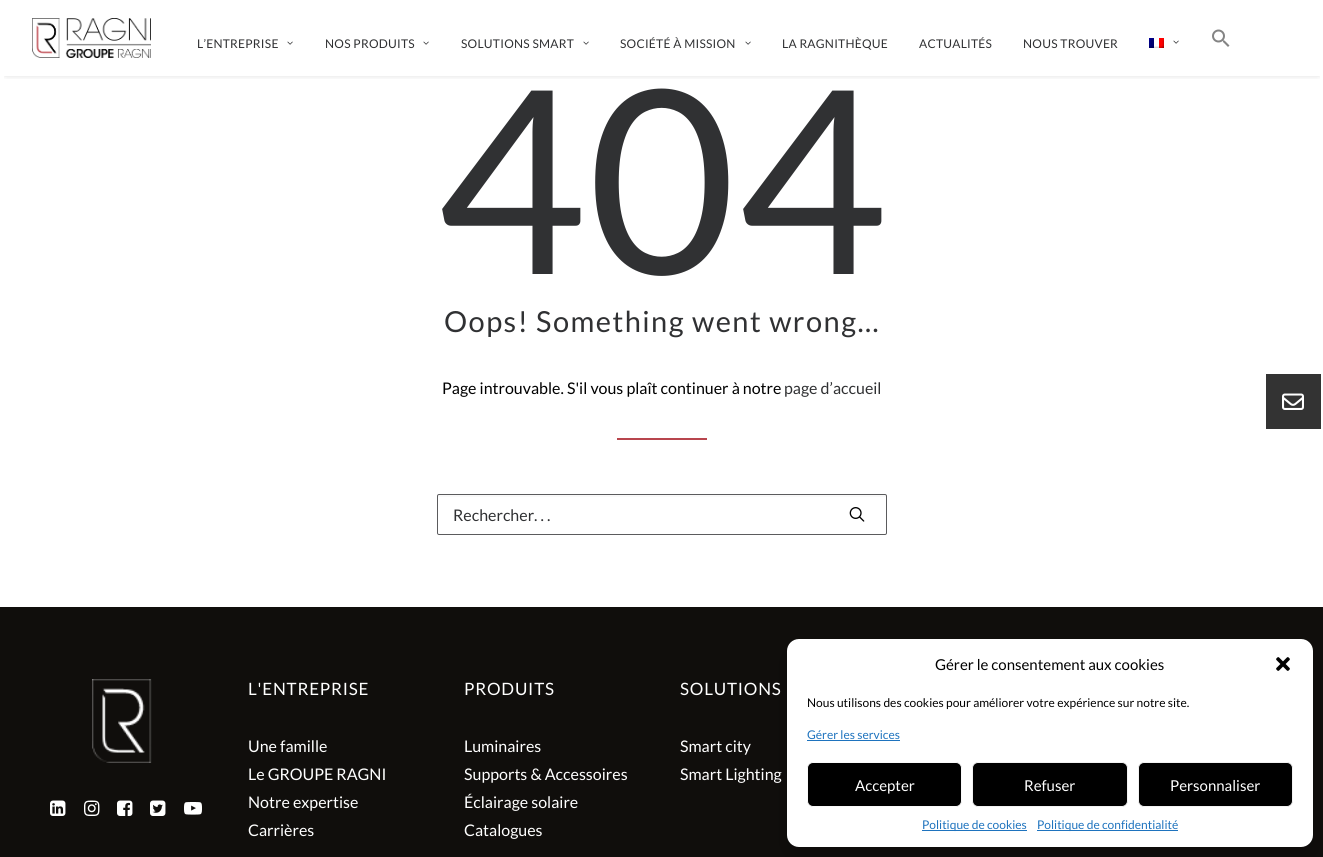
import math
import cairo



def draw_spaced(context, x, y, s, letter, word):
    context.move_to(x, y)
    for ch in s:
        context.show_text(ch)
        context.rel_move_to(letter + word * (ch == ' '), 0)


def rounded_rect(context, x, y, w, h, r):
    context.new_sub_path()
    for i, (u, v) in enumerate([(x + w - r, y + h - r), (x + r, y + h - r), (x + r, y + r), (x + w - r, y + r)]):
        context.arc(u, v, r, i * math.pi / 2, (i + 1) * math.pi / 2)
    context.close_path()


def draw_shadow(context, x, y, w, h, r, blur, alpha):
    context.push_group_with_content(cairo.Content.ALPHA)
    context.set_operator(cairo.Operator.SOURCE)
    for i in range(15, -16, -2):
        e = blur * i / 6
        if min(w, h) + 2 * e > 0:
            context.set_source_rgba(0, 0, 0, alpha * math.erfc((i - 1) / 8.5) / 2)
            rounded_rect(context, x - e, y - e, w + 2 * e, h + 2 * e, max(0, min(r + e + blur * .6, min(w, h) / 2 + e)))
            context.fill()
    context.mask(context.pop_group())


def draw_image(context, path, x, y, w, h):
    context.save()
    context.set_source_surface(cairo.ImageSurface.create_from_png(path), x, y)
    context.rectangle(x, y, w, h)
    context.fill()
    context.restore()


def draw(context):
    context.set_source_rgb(1, 1, 1)
    context.paint()
    context.save()
    context.rectangle(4, 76, 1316, 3)
    context.clip()
    context.set_source_rgb(0, 0, 0)
    draw_shadow(context, 6, 14, 1312, 56, 0, 5, 0.6)
    context.restore()
    draw_image(context, "images/1.png", 32, 18, 119, 40)
    draw_image(context, "images/2.png", 287, 41, 6, 4)
    draw_image(context, "images/2.png", 423, 41, 6, 4)
    draw_image(context, "images/2.png", 583, 41, 6, 4)
    draw_image(context, "images/2.png", 745, 41, 6, 4)
    draw_image(context, "images/3.png", 1149, 38, 15, 10)
    draw_image(context, "images/2.png", 1173, 40, 6, 4)
    draw_image(context, "images/4.png", 1212, 29, 18, 18)
    context.set_source_rgb(184 / 255, 69 / 255, 77 / 255)
    context.rectangle(617, 438, 90, 2)
    context.fill()
    context.set_source_rgb(249 / 255, 249 / 255, 249 / 255)
    context.new_path()
    context.move_to(439, 497)
    context.line_to(885, 497)
    context.curve_to(886, 497, 886, 497, 886, 498)
    context.curve_to(886, 497, 886, 495, 885, 495)
    context.line_to(439, 495)
    context.line_to(438, 495)
    context.line_to(438, 498)
    context.curve_to(438, 497, 438, 497, 439, 497)
    context.close_path()
    context.fill()
    rounded_rect(context, 437.5, 494.5, 449, 40, 1.5)
    context.set_source_rgb(91 / 255, 91 / 255, 93 / 255)
    context.set_line_width(1)
    context.stroke()
    draw_image(context, "images/5.png", 849, 507, 16, 15)
    context.set_source_rgb(16 / 255, 14 / 255, 12 / 255)
    context.rectangle(0, 607, 1323, 250)
    context.fill()
    draw_image(context, "images/6.png", 92, 679, 60, 84)
    draw_image(context, "images/7.png", 50, 800, 16, 16)
    draw_image(context, "images/8.png", 84, 800, 16, 16)
    draw_image(context, "images/9.png", 117, 800, 16, 16)
    draw_image(context, "images/10.png", 150, 800, 16, 16)
    draw_image(context, "images/11.png", 184, 802, 18, 13)
    context.set_source_rgb(51 / 255, 51 / 255, 51 / 255)
    context.rectangle(1266, 374, 55, 55)
    context.fill()
    draw_image(context, "images/12.png", 1282, 393, 22, 17)
    context.set_source_rgb(0, 0, 0)
    draw_shadow(context, 787, 649, 526, 208, 12, 10, 0.19)
    context.set_source_rgb(1, 1, 1)
    rounded_rect(context, 787, 639, 526, 208, 12)
    context.fill()
    draw_image(context, "images/13.png", 1276, 657, 14, 14)
    context.set_source_rgb(30 / 255, 115 / 255, 190 / 255)
    context.rectangle(807, 740, 93, 1)
    context.fill()
    context.set_source_rgb(0, 0, 0)
    rounded_rect(context, 807.5, 762.5, 154, 44, 5.5)
    context.fill_preserve()
    context.set_source_rgb(249 / 255, 249 / 255, 249 / 255)
    context.stroke()
    context.set_source_rgb(0, 0, 0)
    rounded_rect(context, 972.5, 762.5, 155, 44, 5.5)
    context.fill_preserve()
    context.set_source_rgb(242 / 255, 242 / 255, 242 / 255)
    context.stroke()
    context.set_source_rgb(0, 0, 0)
    rounded_rect(context, 1138.5, 762.5, 154, 44, 5.5)
    context.fill_preserve()
    context.set_source_rgb(242 / 255, 242 / 255, 242 / 255)
    context.stroke()
    context.set_source_rgb(30 / 255, 115 / 255, 190 / 255)
    context.rectangle(922, 830, 105, 1)
    context.fill()
    context.rectangle(1037, 830, 141, 1)
    context.fill()
    context.select_font_face("Lato")
    context.set_font_size(12)
    context.set_source_rgb(48 / 255, 49 / 255, 51 / 255)
    draw_spaced(context, 197, 48, "L’ENTREPRISE", 0.25, 0)
    draw_spaced(context, 325, 48, "NOS PRODUITS", 0.25, 0)
    draw_spaced(context, 461, 48, "SOLUTIONS SMART", 0.25, 0)
    draw_spaced(context, 620, 48, "SOCIÉTÉ À MISSION", 0.25, 0)
    draw_spaced(context, 782, 48, "LA RAGNITHÈQUE", 0.25, 0)
    draw_spaced(context, 919, 48, "ACTUALITÉS", 0.25, 0)
    draw_spaced(context, 1023, 48, "NOUS TROUVER", 0.25, 0)
    context.set_font_size(256)
    draw_spaced(context, 437, 274, "404", 2, 0)
    context.set_font_size(29)
    draw_spaced(context, 444, 332, "Oops! Something went wrong…", 1.45, 0)
    context.set_font_size(16)
    context.set_source_rgb(0, 0, 0)
    context.move_to(442, 394)
    context.show_text("Page introuvable. S'il vous plaît continuer à notre")
    context.set_source_rgb(48 / 255, 49 / 255, 51 / 255)
    context.move_to(784, 394)
    context.show_text("page d’accueil")
    context.move_to(453, 521)
    context.show_text("Rechercher. . .")
    context.set_font_size(17)
    context.set_source_rgb(1, 1, 1)
    draw_spaced(context, 248, 695, "L'ENTREPRISE", 0.8, 0)
    context.set_font_size(16)
    context.move_to(248, 752)
    context.show_text("Une famille")
    context.move_to(248, 780)
    context.show_text("Le GROUPE RAGNI")
    context.move_to(248, 808)
    context.show_text("Notre expertise")
    context.move_to(248, 836)
    context.show_text("Carrières")
    context.set_font_size(17)
    draw_spaced(context, 464, 695, "PRODUITS", 0.8, 0)
    context.set_font_size(16)
    context.move_to(464, 752)
    context.show_text("Luminaires")
    context.move_to(464, 780)
    context.show_text("Supports & Accessoires")
    context.move_to(464, 808)
    context.show_text("Éclairage solaire")
    context.move_to(464, 836)
    context.show_text("Catalogues")
    context.set_font_size(17)
    draw_spaced(context, 680, 695, "SOLUTIONS", 0.8, 0)
    context.set_font_size(16)
    context.move_to(680, 752)
    context.show_text("Smart city")
    context.move_to(680, 780)
    context.show_text("Smart Lighting")
    context.set_font_size(15)
    context.set_source_rgb(0, 0, 0)
    context.move_to(935, 670)
    context.show_text("Gérer le consentement aux cookies")
    context.set_font_size(12)
    context.move_to(807, 707)
    context.show_text("Nous utilisons des cookies pour améliorer votre expérience sur notre site.")
    context.set_source_rgb(30 / 255, 115 / 255, 190 / 255)
    context.move_to(807, 739)
    context.show_text("Gérer les services")
    context.set_font_size(15)
    context.set_source_rgb(1, 1, 1)
    context.move_to(855, 791)
    context.show_text("Accepter")
    context.move_to(1024, 791)
    context.show_text("Refuser")
    context.move_to(1170, 791)
    context.show_text("Personnaliser")
    context.set_font_size(12)
    context.set_source_rgb(30 / 255, 115 / 255, 190 / 255)
    context.move_to(922, 829)
    context.show_text("Politique de cookies")
    context.move_to(1037, 829)
    context.show_text("Politique de confidentialité")


surface = cairo.ImageSurface(cairo.Format.RGB24, 1323, 857)
context = cairo.Context(surface)
options = cairo.FontOptions()
options.set_hint_metrics(cairo.HintMetrics.OFF)
options.set_hint_style(cairo.HintStyle.NONE)
context.set_font_options(options)
context.set_miter_limit(4)
draw(context)
surface.write_to_png("out.png")
